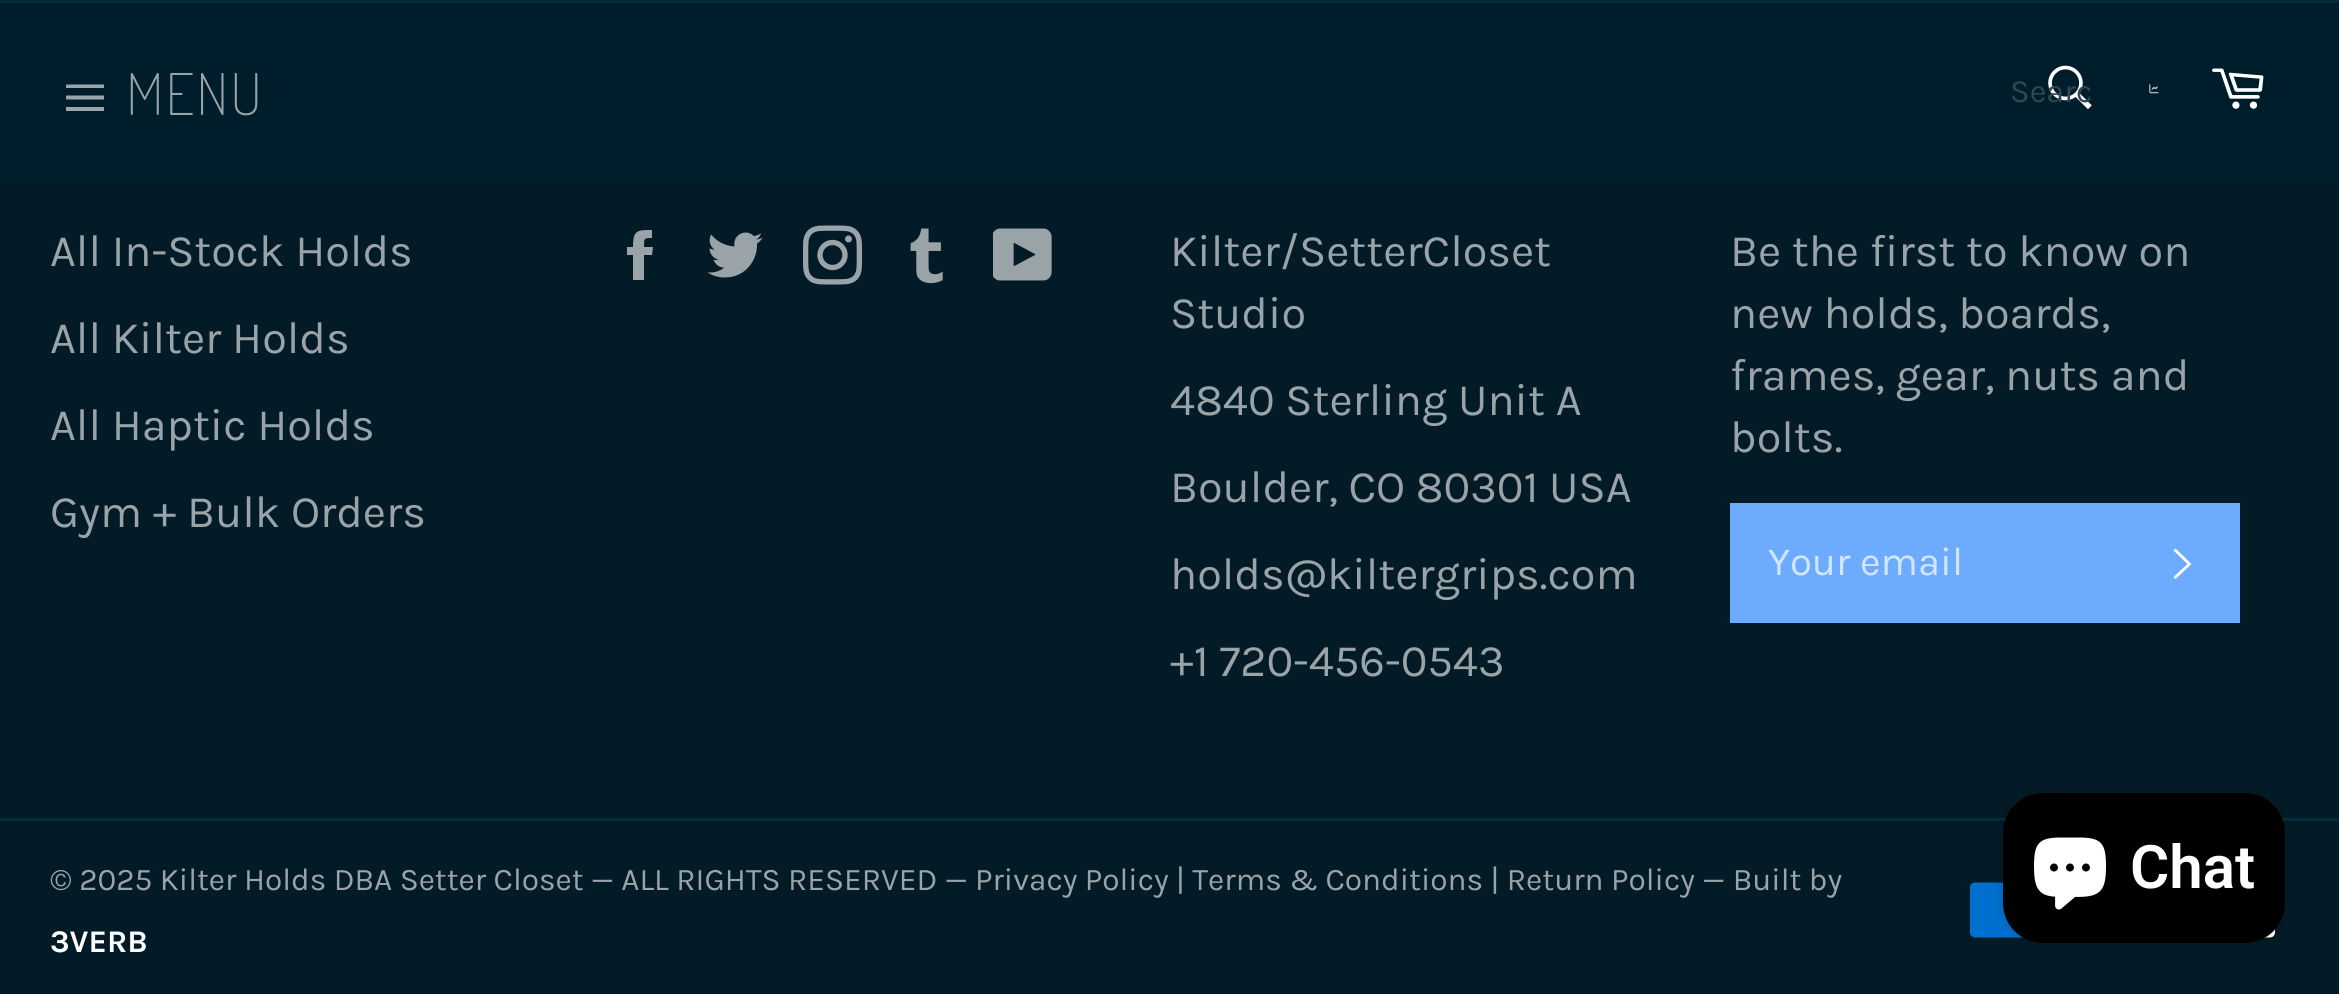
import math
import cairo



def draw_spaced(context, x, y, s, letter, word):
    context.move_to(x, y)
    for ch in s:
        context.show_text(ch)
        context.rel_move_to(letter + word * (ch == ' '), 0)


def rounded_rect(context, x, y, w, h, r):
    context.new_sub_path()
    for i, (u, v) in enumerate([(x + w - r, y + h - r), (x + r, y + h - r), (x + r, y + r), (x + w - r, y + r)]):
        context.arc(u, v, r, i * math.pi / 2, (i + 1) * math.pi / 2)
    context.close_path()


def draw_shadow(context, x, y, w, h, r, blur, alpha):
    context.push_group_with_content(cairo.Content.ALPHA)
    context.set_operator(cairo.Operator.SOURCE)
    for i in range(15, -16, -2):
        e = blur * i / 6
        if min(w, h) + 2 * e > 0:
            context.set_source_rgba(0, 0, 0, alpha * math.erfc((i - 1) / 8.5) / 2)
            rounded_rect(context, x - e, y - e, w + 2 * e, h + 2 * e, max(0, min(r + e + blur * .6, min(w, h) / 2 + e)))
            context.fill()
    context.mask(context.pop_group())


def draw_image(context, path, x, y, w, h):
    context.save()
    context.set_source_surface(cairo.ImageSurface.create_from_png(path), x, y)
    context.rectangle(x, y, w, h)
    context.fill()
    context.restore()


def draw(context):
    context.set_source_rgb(3 / 255, 27 / 255, 38 / 255)
    context.paint()
    context.set_source_rgb(0, 29 / 255, 43 / 255)
    context.rectangle(0, 3, 2339, 180)
    context.fill()
    context.set_source_rgb(5 / 255, 44 / 255, 62 / 255)
    context.rectangle(0, 0, 2339, 3)
    context.fill()
    context.set_source_rgb(153 / 255, 165 / 255, 170 / 255)
    context.new_path()
    context.move_to(66, 95.5)
    context.line_to(104, 95.5)
    context.line_to(104, 99.5)
    context.line_to(66, 99.5)
    context.close_path()
    context.move_to(66, 84.5)
    context.line_to(104, 84.5)
    context.line_to(104, 88)
    context.line_to(66, 88)
    context.close_path()
    context.move_to(66, 107)
    context.line_to(104, 107)
    context.line_to(104, 111)
    context.line_to(66, 111)
    context.close_path()
    context.fill()
    draw_image(context, "images/1.png", 2048, 65, 44, 45)
    draw_image(context, "images/2.png", 2149, 84, 10, 10)
    draw_image(context, "images/3.png", 2212, 68, 52, 41)
    context.set_source_rgb(154 / 255, 164 / 255, 168 / 255)
    context.new_path()
    context.move_to(644, 247)
    context.curve_to(644, 238, 644, 238, 652, 238)
    context.line_to(652, 230)
    context.curve_to(637, 230, 633, 230, 633, 247)
    context.line_to(627, 247)
    context.line_to(627, 255)
    context.line_to(633, 255)
    context.line_to(633, 280)
    context.line_to(644, 280)
    context.line_to(644, 255)
    context.line_to(652, 255)
    context.line_to(653, 247)
    context.close_path()
    context.fill()
    draw_image(context, "images/4.png", 707, 232, 56, 46)
    draw_image(context, "images/5.png", 803, 225, 60, 60)
    draw_image(context, "images/6.png", 910, 228, 33, 56)
    draw_image(context, "images/7.png", 993, 228, 59, 53)
    context.set_source_rgb(108 / 255, 171 / 255, 1)
    context.rectangle(1730, 503, 510, 120)
    context.fill()
    context.set_source_rgb(1, 1, 1)
    context.new_path()
    context.move_to(2173.5, 550.5)
    context.line_to(2175.5, 548.5)
    context.line_to(2191.5, 564)
    context.line_to(2175.5, 579)
    context.line_to(2173.5, 577)
    context.line_to(2187.5, 564)
    context.close_path()
    context.fill()
    context.set_source_rgb(5 / 255, 44 / 255, 62 / 255)
    context.rectangle(0, 818, 2339, 3)
    context.fill()
    draw_image(context, "images/8.png", 1970, 882, 54, 56)
    draw_image(context, "images/9.png", 2264, 929, 11, 9)
    context.set_source_rgb(0, 0, 0)
    draw_shadow(context, 2003, 793, 282, 150, 40, 6, 0.15)
    context.set_source_rgb(0, 0, 0)
    rounded_rect(context, 2003, 793, 282, 150, 40)
    context.fill()
    draw_image(context, "images/10.png", 2034, 837, 72, 73)
    context.select_font_face("Dosis ExtraLight")
    context.set_font_size(57.5)
    context.set_source_rgb(154 / 255, 164 / 255, 168 / 255)
    draw_spaced(context, 126, 115, "MENU", 2, 0)
    context.save()
    context.rectangle(2010, 73, 80, 37)
    context.clip()
    context.select_font_face("Karla")
    context.set_font_size(32.5)
    context.set_source_rgb(47 / 255, 71 / 255, 82 / 255)
    context.move_to(2010, 102)
    context.show_text("Searc")
    context.restore()
    context.select_font_face("Karla")
    context.set_font_size(45)
    context.move_to(50, 266)
    context.show_text("All In-Stock Holds")
    context.move_to(50, 353)
    context.show_text("All Kilter Holds")
    context.move_to(50, 440)
    context.show_text("All Haptic Holds")
    context.move_to(50, 527)
    context.show_text("Gym + Bulk Orders")
    context.move_to(1170, 266)
    context.show_text("Kilter/SetterCloset")
    context.move_to(1170, 328)
    context.show_text("Studio")
    context.move_to(1170, 415)
    context.show_text("4840 Sterling Unit A")
    context.move_to(1170, 502)
    context.show_text("Boulder, CO 80301 USA")
    context.move_to(1170, 589)
    context.show_text("holds@kiltergrips.com")
    context.move_to(1170, 676)
    context.show_text("+1 720-456-0543")
    context.move_to(1730, 266)
    context.show_text("Be the first to know on")
    context.move_to(1730, 328)
    context.show_text("new holds, boards,")
    context.move_to(1730, 390)
    context.show_text("frames, gear, nuts and")
    context.move_to(1730, 452)
    context.show_text("bolts.")
    context.set_font_size(40)
    context.set_source_rgb(211 / 255, 230 / 255, 1)
    context.move_to(1768, 575)
    context.show_text("Your email")
    context.set_font_size(31.5)
    context.set_source_rgb(154 / 255, 164 / 255, 168 / 255)
    context.move_to(50, 890)
    context.show_text("© 2025 Kilter Holds DBA Setter Closet — ALL RIGHTS RESERVED —")
    context.move_to(975, 890)
    context.show_text("Privacy Policy | Terms & Conditions | Return Policy — Built by")
    context.select_font_face("Karla", cairo.FontSlant.NORMAL, cairo.FontWeight.BOLD)
    context.set_source_rgb(1, 1, 1)
    context.move_to(50, 952)
    context.show_text("3VERB")
    context.select_font_face("Roboto SemiBold")
    context.set_font_size(60)
    context.move_to(2130, 888)
    context.show_text("Chat")


surface = cairo.ImageSurface(cairo.Format.RGB24, 2339, 994)
context = cairo.Context(surface)
options = cairo.FontOptions()
options.set_hint_metrics(cairo.HintMetrics.OFF)
options.set_hint_style(cairo.HintStyle.NONE)
context.set_font_options(options)
context.set_miter_limit(4)
draw(context)
surface.write_to_png("out.png")
